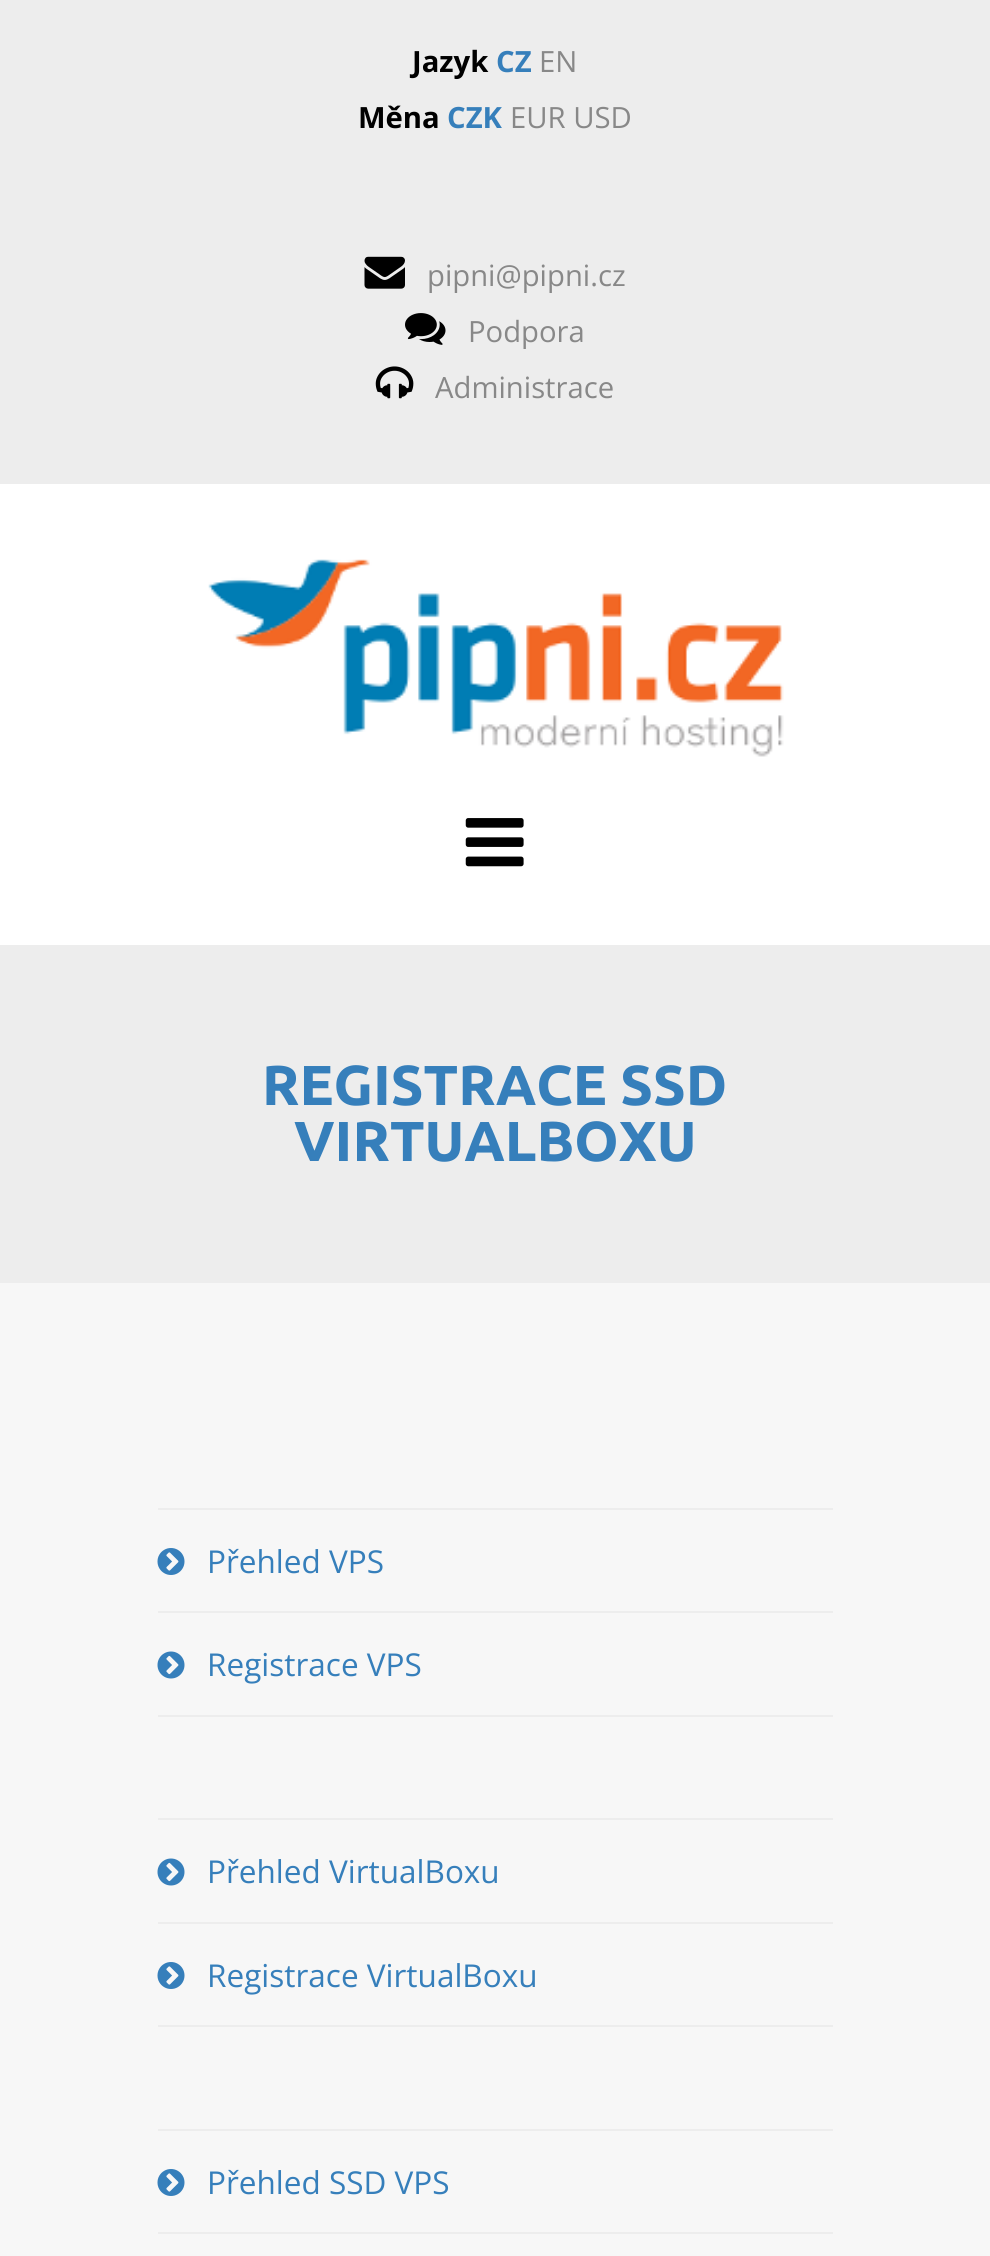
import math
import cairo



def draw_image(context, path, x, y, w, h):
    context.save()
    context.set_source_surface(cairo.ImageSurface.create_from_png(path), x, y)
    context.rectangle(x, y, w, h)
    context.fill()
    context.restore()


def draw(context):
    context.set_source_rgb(247 / 255, 247 / 255, 247 / 255)
    context.paint()
    context.set_source_rgb(237 / 255, 237 / 255, 237 / 255)
    context.rectangle(0, 0, 990, 484)
    context.fill()
    draw_image(context, "images/1.png", 364, 256, 41, 33)
    draw_image(context, "images/2.png", 405, 313, 41, 32)
    draw_image(context, "images/3.png", 375, 366, 39, 33)
    context.set_source_rgb(1, 1, 1)
    context.rectangle(0, 484, 990, 461)
    context.fill()
    draw_image(context, "images/4.png", 208, 559, 576, 198)
    draw_image(context, "images/5.png", 465, 818, 59, 49)
    context.set_source_rgb(237 / 255, 237 / 255, 237 / 255)
    context.rectangle(0, 945, 990, 338)
    context.fill()
    context.rectangle(158, 1508, 675, 2)
    context.fill()
    context.rectangle(158, 1611, 675, 2)
    context.fill()
    draw_image(context, "images/6.png", 157, 1548, 28, 27)
    context.rectangle(158, 1715, 675, 2)
    context.fill()
    draw_image(context, "images/7.png", 157, 1651, 28, 28)
    context.rectangle(158, 1818, 675, 2)
    context.fill()
    context.rectangle(158, 1922, 675, 2)
    context.fill()
    draw_image(context, "images/7.png", 157, 1858, 28, 28)
    context.rectangle(158, 2025, 675, 2)
    context.fill()
    draw_image(context, "images/6.png", 157, 1962, 28, 27)
    context.rectangle(158, 2129, 675, 2)
    context.fill()
    context.rectangle(158, 2232, 675, 2)
    context.fill()
    draw_image(context, "images/6.png", 157, 2169, 28, 27)
    context.select_font_face("Open Sans", cairo.FontSlant.NORMAL, cairo.FontWeight.BOLD)
    context.set_font_size(29.25)
    context.set_source_rgb(0, 0, 0)
    context.move_to(412, 72)
    context.show_text("Jazyk")
    context.set_source_rgb(54 / 255, 127 / 255, 187 / 255)
    context.move_to(496, 72)
    context.show_text("CZ")
    context.select_font_face("Open Sans")
    context.set_source_rgb(136 / 255, 136 / 255, 136 / 255)
    context.move_to(539, 72)
    context.show_text("EN")
    context.select_font_face("Open Sans", cairo.FontSlant.NORMAL, cairo.FontWeight.BOLD)
    context.set_source_rgb(0, 0, 0)
    context.move_to(358, 128)
    context.show_text("Měna")
    context.set_source_rgb(54 / 255, 127 / 255, 187 / 255)
    context.move_to(447, 128)
    context.show_text("CZK")
    context.select_font_face("Open Sans")
    context.set_source_rgb(136 / 255, 136 / 255, 136 / 255)
    context.move_to(510, 128)
    context.show_text("EUR USD")
    context.move_to(427, 286)
    context.show_text("pipni@pipni.cz")
    context.move_to(468, 342)
    context.show_text("Podpora")
    context.move_to(435, 398)
    context.show_text("Administrace")
    context.select_font_face("Ubuntu", cairo.FontSlant.NORMAL, cairo.FontWeight.BOLD)
    context.set_font_size(56.25)
    context.set_source_rgb(54 / 255, 127 / 255, 187 / 255)
    context.move_to(262, 1105)
    context.show_text("REGISTRACE SSD")
    context.move_to(294, 1161)
    context.show_text("VIRTUALBOXU")
    context.select_font_face("Open Sans")
    context.set_font_size(31.5)
    context.move_to(207, 1573)
    context.show_text("Přehled VPS")
    context.move_to(207, 1676)
    context.show_text("Registrace VPS")
    context.move_to(207, 1883)
    context.show_text("Přehled VirtualBoxu")
    context.move_to(207, 1987)
    context.show_text("Registrace VirtualBoxu")
    context.move_to(207, 2194)
    context.show_text("Přehled SSD VPS")


surface = cairo.ImageSurface(cairo.Format.RGB24, 990, 2256)
context = cairo.Context(surface)
options = cairo.FontOptions()
options.set_hint_metrics(cairo.HintMetrics.OFF)
options.set_hint_style(cairo.HintStyle.NONE)
context.set_font_options(options)
context.set_miter_limit(4)
draw(context)
surface.write_to_png("out.png")
